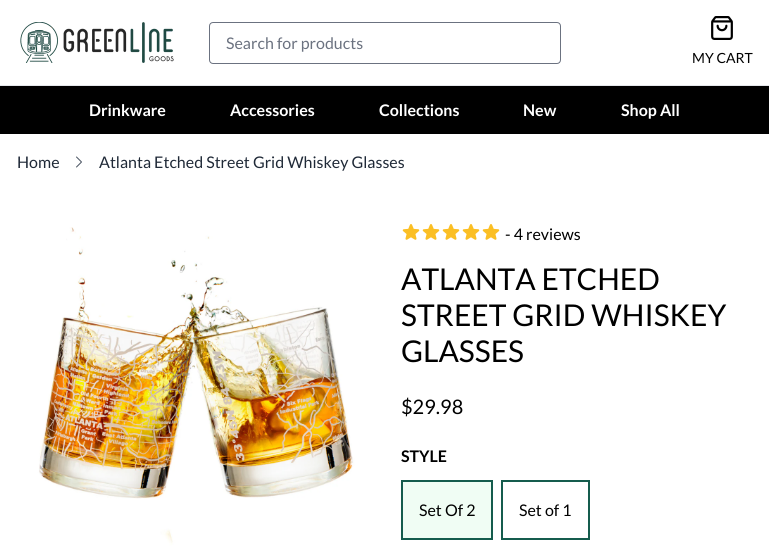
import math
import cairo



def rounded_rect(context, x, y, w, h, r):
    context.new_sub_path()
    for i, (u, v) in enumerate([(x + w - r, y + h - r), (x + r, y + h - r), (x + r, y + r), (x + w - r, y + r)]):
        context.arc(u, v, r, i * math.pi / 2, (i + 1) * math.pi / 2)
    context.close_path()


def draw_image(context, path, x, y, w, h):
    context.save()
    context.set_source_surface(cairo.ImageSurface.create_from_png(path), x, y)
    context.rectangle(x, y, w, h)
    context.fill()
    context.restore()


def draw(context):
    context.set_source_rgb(1, 1, 1)
    context.paint()
    context.set_source_rgb(229 / 255, 231 / 255, 235 / 255)
    context.rectangle(0, 85, 769, 1)
    context.fill()
    draw_image(context, "images/1.png", 20, 22, 154, 41)
    rounded_rect(context, 209.5, 22.5, 351, 41, 3.5)
    context.set_source_rgb(107 / 255, 114 / 255, 128 / 255)
    context.set_line_width(1)
    context.stroke()
    draw_image(context, "images/2.png", 711, 16, 22, 24)
    context.set_source_rgb(0, 0, 0)
    context.rectangle(0, 86, 769, 48)
    context.fill()
    context.new_path()
    context.move_to(76.5, 157)
    context.line_to(81.5, 162)
    context.line_to(76.5, 167)
    context.set_source_rgb(75 / 255, 85 / 255, 99 / 255)
    context.set_line_cap(cairo.LineCap.ROUND)
    context.set_line_join(cairo.LineJoin.ROUND)
    context.stroke()
    draw_image(context, "images/3.png", 17, 222, 352, 324)
    draw_image(context, "images/4.png", 402, 224, 18, 16)
    draw_image(context, "images/4.png", 422, 224, 18, 16)
    draw_image(context, "images/4.png", 442, 224, 18, 16)
    draw_image(context, "images/4.png", 462, 224, 18, 16)
    draw_image(context, "images/4.png", 482, 224, 18, 16)
    context.set_source_rgb(240 / 255, 253 / 255, 244 / 255)
    context.rectangle(402, 481, 90, 58)
    context.fill_preserve()
    context.set_source_rgb(21 / 255, 92 / 255, 77 / 255)
    context.set_line_width(2)
    context.set_line_cap(cairo.LineCap.BUTT)
    context.set_line_join(cairo.LineJoin.MITER)
    context.stroke()
    context.rectangle(502, 481, 87, 58)
    context.stroke()
    context.select_font_face("Lato")
    context.set_font_size(16)
    context.set_source_rgb(107 / 255, 114 / 255, 128 / 255)
    context.move_to(226, 49)
    context.show_text("Search for products")
    context.set_font_size(14)
    context.set_source_rgb(0, 0, 0)
    context.move_to(692, 63)
    context.show_text("MY CART")
    context.select_font_face("Lato", cairo.FontSlant.NORMAL, cairo.FontWeight.BOLD)
    context.set_font_size(16)
    context.set_source_rgb(1, 1, 1)
    context.move_to(89, 116)
    context.show_text("Drinkware")
    context.move_to(230, 116)
    context.show_text("Accessories")
    context.move_to(379, 116)
    context.show_text("Collections")
    context.move_to(523, 116)
    context.show_text("New")
    context.move_to(621, 116)
    context.show_text("Shop All")
    context.select_font_face("Lato")
    context.set_source_rgb(31 / 255, 41 / 255, 55 / 255)
    context.move_to(17, 168)
    context.show_text("Home")
    context.move_to(99, 168)
    context.show_text("Atlanta Etched Street Grid Whiskey Glasses")
    context.set_source_rgb(0, 0, 0)
    context.move_to(505, 240)
    context.show_text("- 4 reviews")
    context.set_font_size(30)
    context.move_to(401, 290)
    context.show_text("ATLANTA ETCHED")
    context.move_to(401, 326)
    context.show_text("STREET GRID WHISKEY")
    context.move_to(401, 362)
    context.show_text("GLASSES")
    context.set_font_size(20)
    context.move_to(401, 414)
    context.show_text("$29.98")
    context.select_font_face("Lato", cairo.FontSlant.NORMAL, cairo.FontWeight.BOLD)
    context.set_font_size(16)
    context.move_to(401, 462)
    context.show_text("STYLE")
    context.select_font_face("Lato")
    context.move_to(419, 516)
    context.show_text("Set Of 2")
    context.move_to(519, 516)
    context.show_text("Set of 1")


surface = cairo.ImageSurface(cairo.Format.RGB24, 769, 546)
context = cairo.Context(surface)
options = cairo.FontOptions()
options.set_hint_metrics(cairo.HintMetrics.OFF)
options.set_hint_style(cairo.HintStyle.NONE)
context.set_font_options(options)
context.set_miter_limit(4)
draw(context)
surface.write_to_png("out.png")
